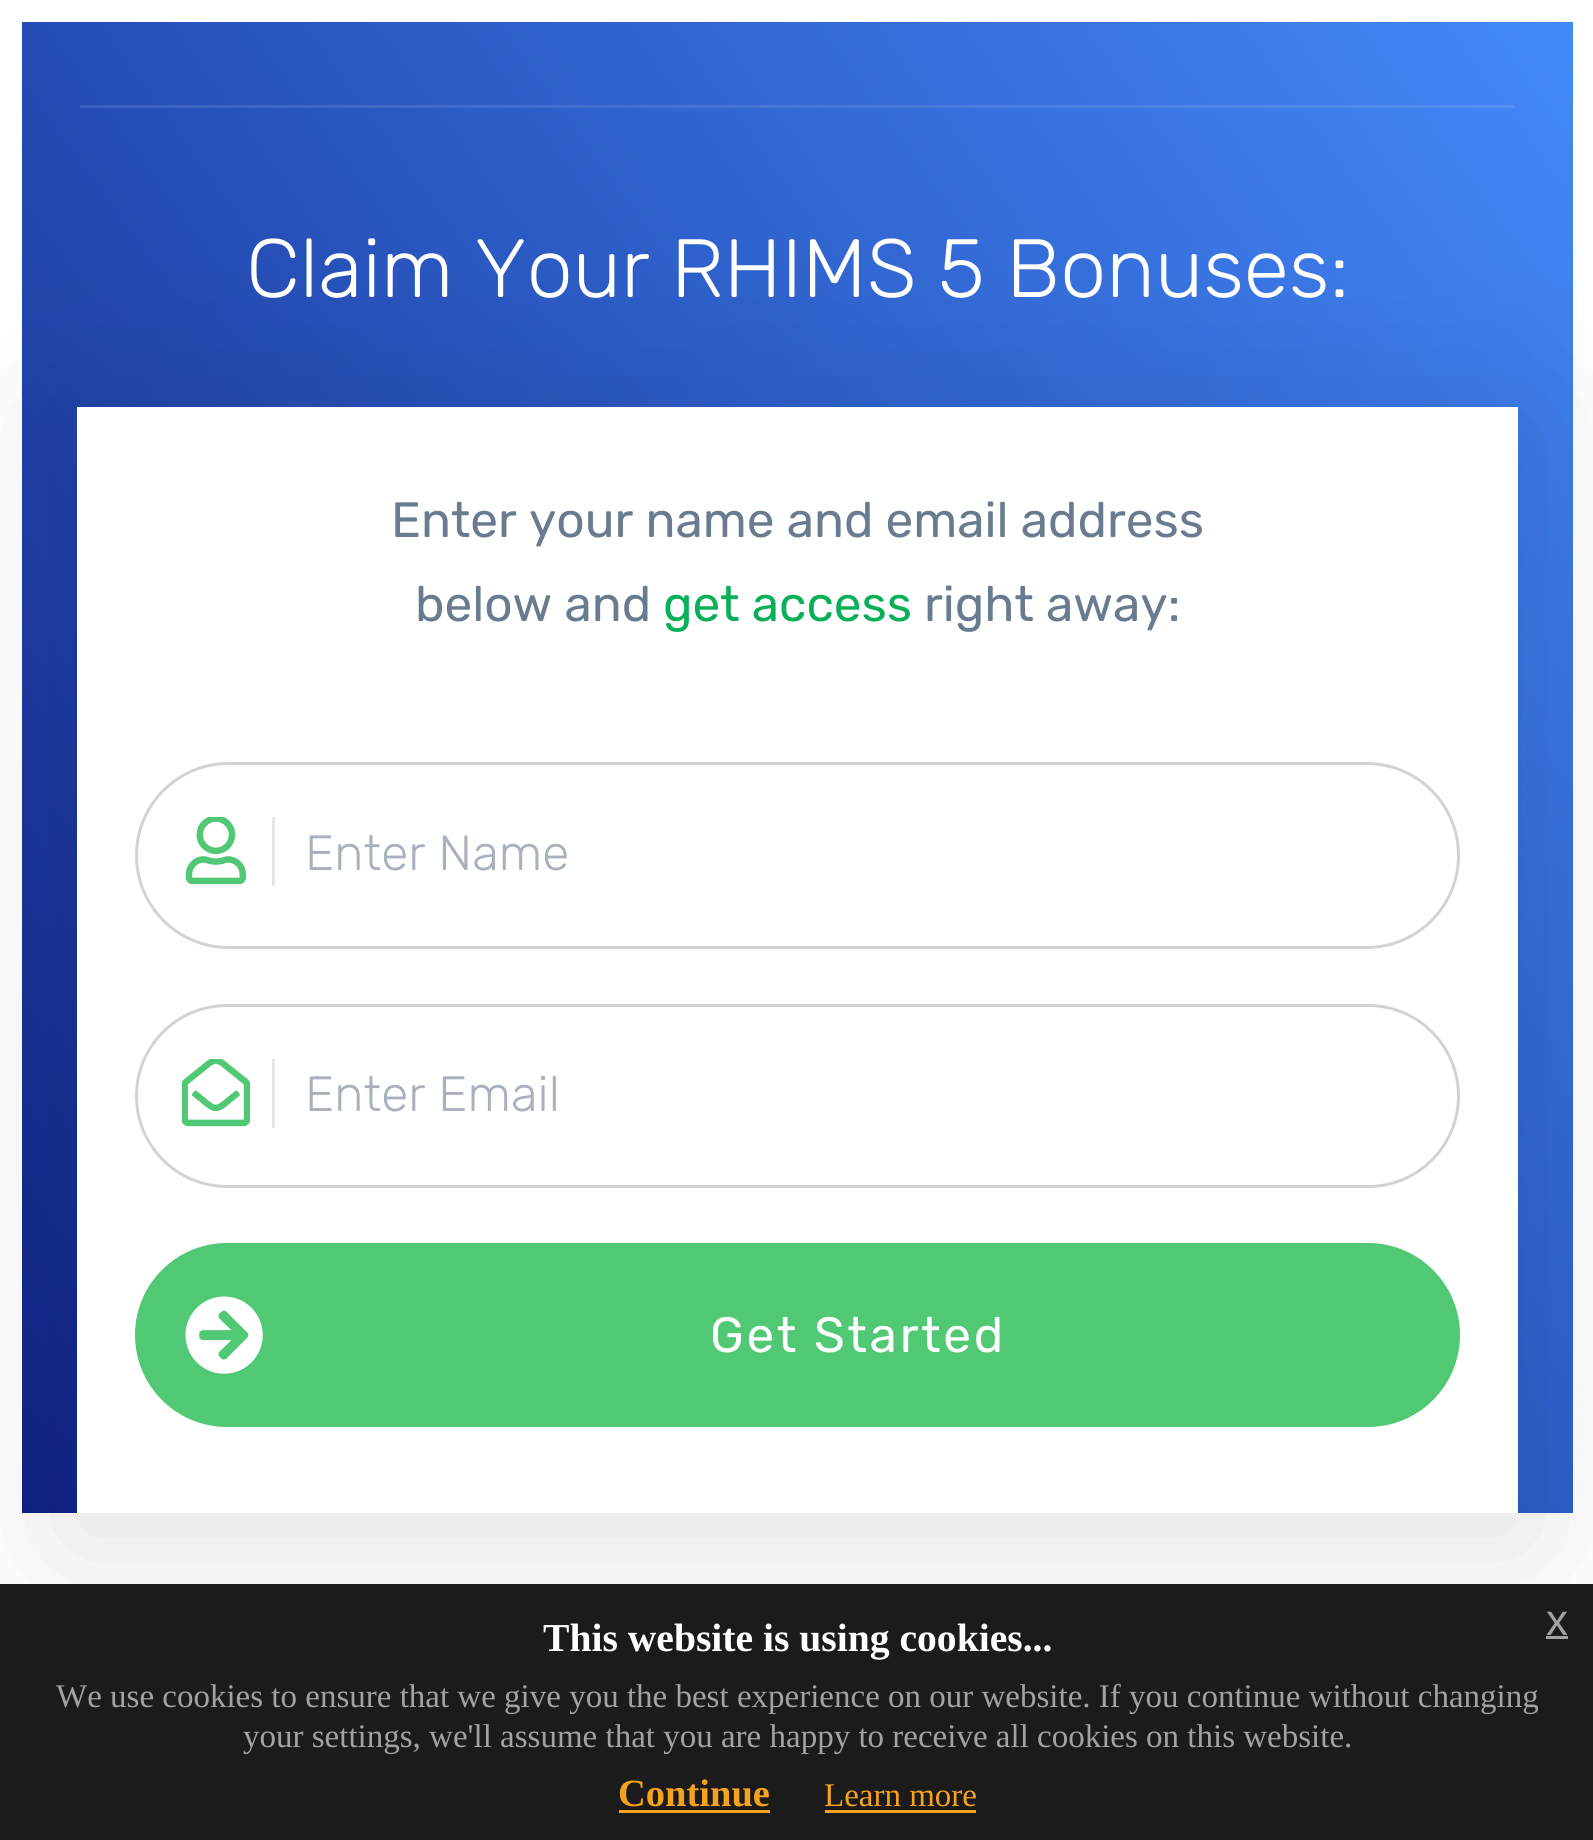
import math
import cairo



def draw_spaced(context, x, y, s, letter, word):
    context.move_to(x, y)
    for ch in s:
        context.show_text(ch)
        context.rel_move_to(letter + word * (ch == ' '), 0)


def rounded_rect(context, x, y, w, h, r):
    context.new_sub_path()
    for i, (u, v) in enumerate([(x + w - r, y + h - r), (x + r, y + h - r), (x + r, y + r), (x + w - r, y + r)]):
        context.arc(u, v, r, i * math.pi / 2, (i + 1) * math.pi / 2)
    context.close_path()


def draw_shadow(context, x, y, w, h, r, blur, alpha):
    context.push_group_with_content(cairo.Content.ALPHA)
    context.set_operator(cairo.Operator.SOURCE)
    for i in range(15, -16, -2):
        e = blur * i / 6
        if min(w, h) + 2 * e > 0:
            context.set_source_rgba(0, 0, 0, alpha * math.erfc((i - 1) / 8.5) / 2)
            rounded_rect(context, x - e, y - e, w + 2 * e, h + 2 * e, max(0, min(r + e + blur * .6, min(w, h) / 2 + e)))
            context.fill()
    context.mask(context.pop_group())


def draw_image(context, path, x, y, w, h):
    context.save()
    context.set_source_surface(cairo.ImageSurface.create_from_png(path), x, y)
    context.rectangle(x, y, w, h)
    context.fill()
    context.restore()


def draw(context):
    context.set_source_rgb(1, 1, 1)
    context.paint()
    gradient = cairo.LinearGradient(-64, 1393, 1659, 141)
    gradient.add_color_stop_rgba(0, 16 / 255, 35 / 255, 133 / 255, 1)
    gradient.add_color_stop_rgba(1, 67 / 255, 137 / 255, 249 / 255, 1)
    context.set_source(gradient)
    context.rectangle(22, 22, 1551, 1491)
    context.fill()
    gradient = cairo.LinearGradient(-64, 1393, 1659, 141)
    gradient.add_color_stop_rgba(0, 40 / 255, 57 / 255, 145 / 255, 1)
    gradient.add_color_stop_rgba(1, 86 / 255, 149 / 255, 250 / 255, 1)
    context.set_source(gradient)
    context.rectangle(80, 105, 1435, 3)
    context.fill()
    context.set_source_rgb(0, 0, 0)
    draw_shadow(context, 61, 413, 1474, 1138, 0, 75.5, 0.11)
    context.set_source_rgb(1, 1, 1)
    context.rectangle(77, 407, 1441, 1106)
    context.fill()
    rounded_rect(context, 136.5, 763.5, 1322, 184, 92)
    context.set_source_rgb(211 / 255, 211 / 255, 211 / 255)
    context.set_line_width(3)
    context.stroke()
    context.set_source_rgb(230 / 255, 230 / 255, 230 / 255)
    context.rectangle(272, 817, 3, 69)
    context.fill()
    draw_image(context, "images/1.png", 185, 817, 61, 68)
    rounded_rect(context, 136.5, 1005.5, 1322, 181, 90.5)
    context.set_source_rgb(211 / 255, 211 / 255, 211 / 255)
    context.stroke()
    context.set_source_rgb(230 / 255, 230 / 255, 230 / 255)
    context.rectangle(272, 1059, 3, 69)
    context.fill()
    draw_image(context, "images/2.png", 182, 1059, 68, 68)
    context.set_source_rgb(81 / 255, 200 / 255, 116 / 255)
    rounded_rect(context, 135, 1243, 1325, 184, 92)
    context.fill()
    draw_image(context, "images/3.png", 185, 1296, 78, 78)
    context.set_source_rgba(25 / 255, 25 / 255, 25 / 255, 0.9)
    context.rectangle(0, 1584, 1593, 256)
    context.fill()
    context.rectangle(0, 1584, 1593, 256)
    context.fill()
    context.set_source_rgb(162 / 255, 162 / 255, 162 / 255)
    context.rectangle(1546, 1636, 22, 3)
    context.fill()
    context.set_source_rgb(246 / 255, 162 / 255, 29 / 255)
    context.rectangle(619, 1810, 151, 3)
    context.fill()
    context.rectangle(825, 1810, 151, 3)
    context.fill()
    context.select_font_face("Rubik Light")
    context.set_font_size(82.5)
    context.set_source_rgb(1, 1, 1)
    context.move_to(246, 297)
    context.show_text("Claim Your RHIMS 5 Bonuses:")
    context.select_font_face("Rubik")
    context.set_font_size(49.5)
    context.set_source_rgb(105 / 255, 123 / 255, 143 / 255)
    context.move_to(391, 537)
    context.show_text("Enter your name and email address")
    context.move_to(415, 621)
    context.show_text("below and")
    context.set_source_rgb(10 / 255, 176 / 255, 89 / 255)
    context.move_to(663, 621)
    context.show_text("get access")
    context.set_source_rgb(105 / 255, 123 / 255, 143 / 255)
    context.move_to(924, 621)
    context.show_text("right away:")
    context.select_font_face("Rubik Light")
    context.set_source_rgb(168 / 255, 177 / 255, 189 / 255)
    context.move_to(305, 870)
    context.show_text("Enter Name")
    context.move_to(305, 1111)
    context.show_text("Enter Email")
    context.select_font_face("Rubik")
    context.set_source_rgb(1, 1, 1)
    draw_spaced(context, 710, 1352, "Get Started", 2.75, 0)
    context.select_font_face("Liberation Serif", cairo.FontSlant.NORMAL, cairo.FontWeight.BOLD)
    context.set_font_size(39.6)
    context.move_to(543, 1651)
    context.show_text("This website is using cookies...")
    context.select_font_face("Liberation Sans")
    context.set_font_size(44)
    context.set_source_rgb(162 / 255, 162 / 255, 162 / 255)
    context.move_to(1546, 1635)
    context.show_text("x")
    context.select_font_face("Liberation Serif")
    context.set_font_size(33)
    context.move_to(56, 1707)
    context.show_text("We use cookies to ensure that we give you the best experience on our website. If you continue without changing")
    context.move_to(243, 1747)
    context.show_text("your settings, we'll assume that you are happy to receive all cookies on this website.")
    context.select_font_face("Liberation Serif", cairo.FontSlant.NORMAL, cairo.FontWeight.BOLD)
    context.set_font_size(38.5)
    context.set_source_rgb(246 / 255, 162 / 255, 29 / 255)
    context.move_to(618, 1806)
    context.show_text("Continue")
    context.select_font_face("Liberation Serif")
    context.set_font_size(33)
    context.move_to(824, 1806)
    context.show_text("Learn more")


surface = cairo.ImageSurface(cairo.Format.RGB24, 1593, 1840)
context = cairo.Context(surface)
options = cairo.FontOptions()
options.set_hint_metrics(cairo.HintMetrics.OFF)
options.set_hint_style(cairo.HintStyle.NONE)
context.set_font_options(options)
context.set_miter_limit(4)
draw(context)
surface.write_to_png("out.png")
